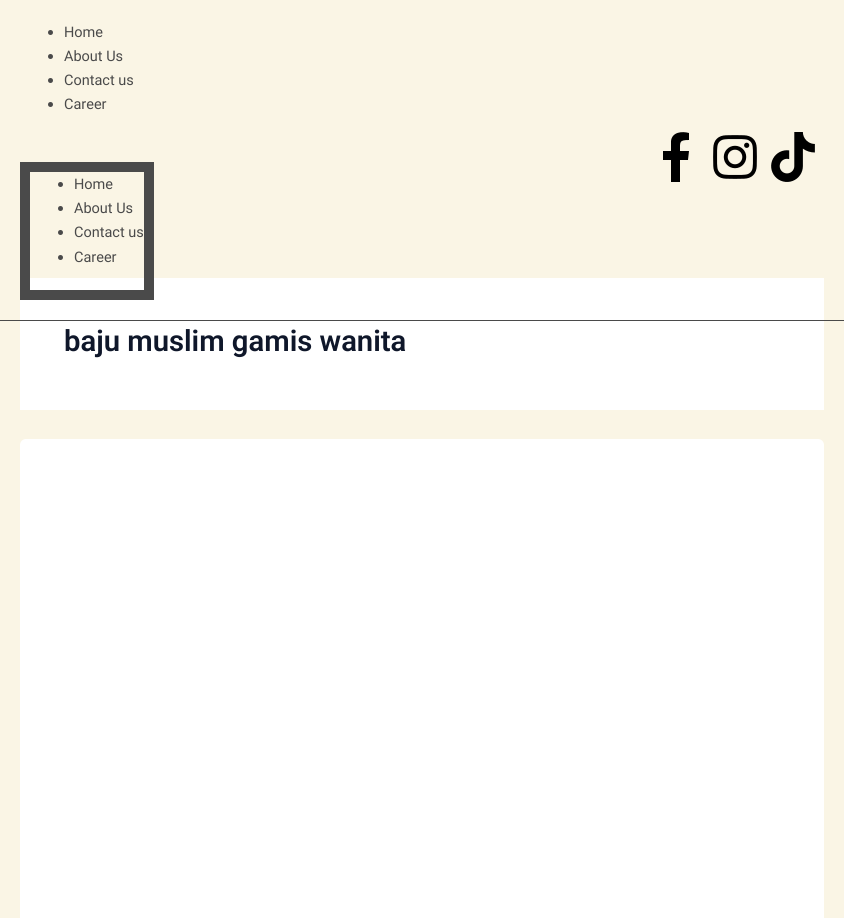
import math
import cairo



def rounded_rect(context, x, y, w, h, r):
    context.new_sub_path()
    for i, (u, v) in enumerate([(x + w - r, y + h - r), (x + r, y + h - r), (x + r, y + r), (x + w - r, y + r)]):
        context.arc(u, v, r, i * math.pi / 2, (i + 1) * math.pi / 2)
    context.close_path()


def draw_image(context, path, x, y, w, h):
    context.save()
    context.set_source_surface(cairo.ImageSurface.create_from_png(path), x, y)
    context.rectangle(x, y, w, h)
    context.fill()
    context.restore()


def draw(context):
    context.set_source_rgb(250 / 255, 245 / 255, 229 / 255)
    context.paint()
    context.set_source_rgb(1, 1, 1)
    context.rectangle(20, 278, 804, 132)
    context.fill()
    context.set_source_rgb(74 / 255, 74 / 255, 74 / 255)
    context.rectangle(0, 320, 844, 1)
    context.fill()
    context.arc(50.5, 32.5, 2.5, 0, 2 * math.pi)
    context.fill()
    context.arc(50.5, 56.5, 2.5, 0, 2 * math.pi)
    context.fill()
    context.arc(50.5, 80.5, 2.5, 0, 2 * math.pi)
    context.fill()
    context.arc(50.5, 104.5, 2.5, 0, 2 * math.pi)
    context.fill()
    context.rectangle(25, 167, 124, 128)
    context.set_line_width(10)
    context.stroke()
    context.arc(60.5, 184.5, 2.5, 0, 2 * math.pi)
    context.fill()
    context.arc(60.5, 208.5, 2.5, 0, 2 * math.pi)
    context.fill()
    context.arc(60.5, 232.5, 2.5, 0, 2 * math.pi)
    context.fill()
    context.arc(60.5, 257.5, 2.5, 0, 2 * math.pi)
    context.fill()
    context.set_source_rgb(0, 0, 0)
    context.new_path()
    context.move_to(688, 160)
    context.line_to(689, 151)
    context.line_to(680, 151)
    context.curve_to(680, 142, 679, 140, 689, 140)
    context.line_to(689, 133)
    context.curve_to(682, 131, 672, 132, 671, 141)
    context.line_to(671, 151)
    context.line_to(663, 151)
    context.line_to(663, 160)
    context.line_to(671, 160)
    context.line_to(671, 182)
    context.line_to(680, 182)
    context.line_to(680, 160)
    context.close_path()
    context.fill()
    draw_image(context, "images/1.png", 713, 135, 44, 44)
    draw_image(context, "images/2.png", 771, 132, 44, 50)
    context.set_source_rgb(1, 1, 1)
    rounded_rect(context, 20, 439, 804, 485, 6)
    context.fill()
    context.select_font_face("Roboto")
    context.set_font_size(14.5)
    context.set_source_rgb(74 / 255, 74 / 255, 74 / 255)
    context.move_to(64, 37)
    context.show_text("Home")
    context.move_to(64, 61)
    context.show_text("About Us")
    context.move_to(64, 85)
    context.show_text("Contact us")
    context.move_to(64, 109)
    context.show_text("Career")
    context.move_to(74, 189)
    context.show_text("Home")
    context.move_to(74, 213)
    context.show_text("About Us")
    context.move_to(74, 237)
    context.show_text("Contact us")
    context.move_to(74, 262)
    context.show_text("Career")
    context.select_font_face("Roboto SemiBold")
    context.set_font_size(29.25)
    context.set_source_rgb(15 / 255, 23 / 255, 42 / 255)
    context.move_to(64, 351)
    context.show_text("baju muslim gamis wanita")


surface = cairo.ImageSurface(cairo.Format.RGB24, 844, 918)
context = cairo.Context(surface)
options = cairo.FontOptions()
options.set_hint_metrics(cairo.HintMetrics.OFF)
options.set_hint_style(cairo.HintStyle.NONE)
context.set_font_options(options)
context.set_miter_limit(4)
draw(context)
surface.write_to_png("out.png")
